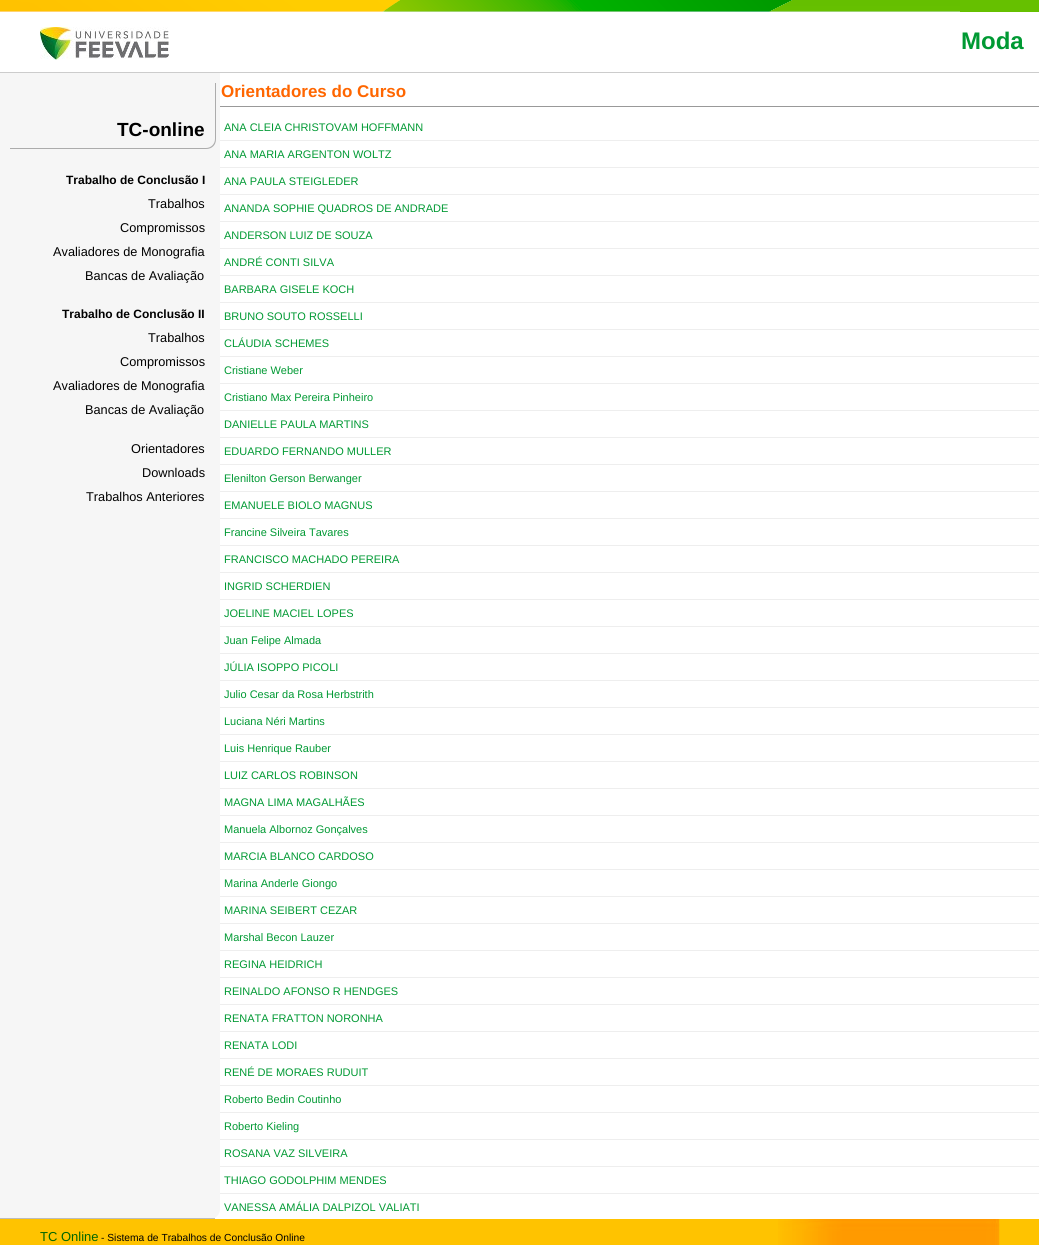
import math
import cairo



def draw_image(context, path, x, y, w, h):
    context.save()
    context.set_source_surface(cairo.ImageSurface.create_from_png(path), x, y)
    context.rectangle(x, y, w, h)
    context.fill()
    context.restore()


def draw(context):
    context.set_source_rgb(1, 1, 1)
    context.paint()
    context.set_source_rgb(102 / 255, 192 / 255, 0)
    context.rectangle(960, 0, 79, 12)
    context.fill()
    draw_image(context, "images/1.png", 0, 0, 960, 12)
    context.set_source_rgb(204 / 255, 204 / 255, 204 / 255)
    context.rectangle(0, 72, 1039, 1)
    context.fill()
    draw_image(context, "images/2.png", 40, 27, 129, 33)
    context.set_source_rgb(246 / 255, 246 / 255, 246 / 255)
    context.new_path()
    context.move_to(0, 73)
    context.line_to(220, 73)
    context.line_to(220, 1209)
    context.curve_to(220, 1214.5, 215.5, 1219, 210, 1219)
    context.line_to(0, 1219)
    context.close_path()
    context.fill()
    context.set_source_rgb(188 / 255, 188 / 255, 188 / 255)
    context.rectangle(0, 1218, 215, 1)
    context.fill()
    context.set_source_rgb(172 / 255, 172 / 255, 172 / 255)
    context.set_fill_rule(cairo.FillRule.EVEN_ODD)
    context.new_path()
    context.move_to(10, 83)
    context.line_to(216, 83)
    context.line_to(216, 139)
    context.curve_to(216, 145, 212, 149, 206, 149)
    context.line_to(10, 149)
    context.close_path()
    context.move_to(10, 83)
    context.line_to(215, 83)
    context.line_to(215, 139)
    context.curve_to(215, 144, 211, 148, 206, 148)
    context.line_to(10, 148)
    context.close_path()
    context.fill()
    context.set_source_rgb(153 / 255, 153 / 255, 153 / 255)
    context.rectangle(220, 106, 819, 1)
    context.fill()
    context.set_source_rgb(238 / 255, 238 / 255, 238 / 255)
    context.rectangle(220, 140, 819, 1)
    context.fill()
    context.rectangle(220, 167, 819, 1)
    context.fill()
    context.rectangle(220, 194, 819, 1)
    context.fill()
    context.rectangle(220, 221, 819, 1)
    context.fill()
    context.rectangle(220, 248, 819, 1)
    context.fill()
    context.rectangle(220, 275, 819, 1)
    context.fill()
    context.rectangle(220, 302, 819, 1)
    context.fill()
    context.rectangle(220, 329, 819, 1)
    context.fill()
    context.rectangle(220, 356, 819, 1)
    context.fill()
    context.rectangle(220, 383, 819, 1)
    context.fill()
    context.rectangle(220, 410, 819, 1)
    context.fill()
    context.rectangle(220, 437, 819, 1)
    context.fill()
    context.rectangle(220, 464, 819, 1)
    context.fill()
    context.rectangle(220, 491, 819, 1)
    context.fill()
    context.rectangle(220, 518, 819, 1)
    context.fill()
    context.rectangle(220, 545, 819, 1)
    context.fill()
    context.rectangle(220, 572, 819, 1)
    context.fill()
    context.rectangle(220, 599, 819, 1)
    context.fill()
    context.rectangle(220, 626, 819, 1)
    context.fill()
    context.rectangle(220, 653, 819, 1)
    context.fill()
    context.rectangle(220, 680, 819, 1)
    context.fill()
    context.rectangle(220, 707, 819, 1)
    context.fill()
    context.rectangle(220, 734, 819, 1)
    context.fill()
    context.rectangle(220, 761, 819, 1)
    context.fill()
    context.rectangle(220, 788, 819, 1)
    context.fill()
    context.rectangle(220, 815, 819, 1)
    context.fill()
    context.rectangle(220, 842, 819, 1)
    context.fill()
    context.rectangle(220, 869, 819, 1)
    context.fill()
    context.rectangle(220, 896, 819, 1)
    context.fill()
    context.rectangle(220, 923, 819, 1)
    context.fill()
    context.rectangle(220, 950, 819, 1)
    context.fill()
    context.rectangle(220, 977, 819, 1)
    context.fill()
    context.rectangle(220, 1004, 819, 1)
    context.fill()
    context.rectangle(220, 1031, 819, 1)
    context.fill()
    context.rectangle(220, 1058, 819, 1)
    context.fill()
    context.rectangle(220, 1085, 819, 1)
    context.fill()
    context.rectangle(220, 1112, 819, 1)
    context.fill()
    context.rectangle(220, 1139, 819, 1)
    context.fill()
    context.rectangle(220, 1166, 819, 1)
    context.fill()
    context.rectangle(220, 1193, 819, 1)
    context.fill()
    context.set_source_rgb(1, 195 / 255, 0)
    context.rectangle(0, 1219, 1039, 26)
    context.fill()
    draw_image(context, "images/3.png", 778, 1219, 222, 26)
    context.select_font_face("Liberation Sans", cairo.FontSlant.NORMAL, cairo.FontWeight.BOLD)
    context.set_font_size(24)
    context.set_source_rgb(0, 153 / 255, 51 / 255)
    context.move_to(961, 49)
    context.show_text("Moda")
    context.set_font_size(19)
    context.set_source_rgb(0, 0, 0)
    context.move_to(117, 136)
    context.show_text("TC-online")
    context.set_font_size(12)
    context.move_to(66, 184)
    context.show_text("Trabalho de Conclusão I")
    context.select_font_face("Liberation Sans")
    context.set_font_size(12.75)
    context.move_to(148, 208)
    context.show_text("Trabalhos")
    context.move_to(120, 232)
    context.show_text("Compromissos")
    context.move_to(53, 256)
    context.show_text("Avaliadores de Monografia")
    context.move_to(85, 280)
    context.show_text("Bancas de Avaliação")
    context.select_font_face("Liberation Sans", cairo.FontSlant.NORMAL, cairo.FontWeight.BOLD)
    context.set_font_size(12)
    context.move_to(62, 318)
    context.show_text("Trabalho de Conclusão II")
    context.select_font_face("Liberation Sans")
    context.set_font_size(12.75)
    context.move_to(148, 342)
    context.show_text("Trabalhos")
    context.move_to(120, 366)
    context.show_text("Compromissos")
    context.move_to(53, 390)
    context.show_text("Avaliadores de Monografia")
    context.move_to(85, 414)
    context.show_text("Bancas de Avaliação")
    context.move_to(131, 453)
    context.show_text("Orientadores")
    context.move_to(142, 477)
    context.show_text("Downloads")
    context.move_to(86, 501)
    context.show_text("Trabalhos Anteriores")
    context.select_font_face("Liberation Sans", cairo.FontSlant.NORMAL, cairo.FontWeight.BOLD)
    context.set_font_size(17)
    context.set_source_rgb(1, 102 / 255, 0)
    context.move_to(221, 97)
    context.show_text("Orientadores do Curso")
    context.select_font_face("Liberation Sans")
    context.set_font_size(11)
    context.set_source_rgb(0, 153 / 255, 51 / 255)
    context.move_to(224, 131)
    context.show_text("ANA CLEIA CHRISTOVAM HOFFMANN")
    context.move_to(224, 158)
    context.show_text("ANA MARIA ARGENTON WOLTZ")
    context.move_to(224, 185)
    context.show_text("ANA PAULA STEIGLEDER")
    context.move_to(224, 212)
    context.show_text("ANANDA SOPHIE QUADROS DE ANDRADE")
    context.move_to(224, 239)
    context.show_text("ANDERSON LUIZ DE SOUZA")
    context.move_to(224, 266)
    context.show_text("ANDRÉ CONTI SILVA")
    context.move_to(224, 293)
    context.show_text("BARBARA GISELE KOCH")
    context.move_to(224, 320)
    context.show_text("BRUNO SOUTO ROSSELLI")
    context.move_to(224, 347)
    context.show_text("CLÁUDIA SCHEMES")
    context.move_to(224, 374)
    context.show_text("Cristiane Weber")
    context.move_to(224, 401)
    context.show_text("Cristiano Max Pereira Pinheiro")
    context.move_to(224, 428)
    context.show_text("DANIELLE PAULA MARTINS")
    context.move_to(224, 455)
    context.show_text("EDUARDO FERNANDO MULLER")
    context.move_to(224, 482)
    context.show_text("Elenilton Gerson Berwanger")
    context.move_to(224, 509)
    context.show_text("EMANUELE BIOLO MAGNUS")
    context.move_to(224, 536)
    context.show_text("Francine Silveira Tavares")
    context.move_to(224, 563)
    context.show_text("FRANCISCO MACHADO PEREIRA")
    context.move_to(224, 590)
    context.show_text("INGRID SCHERDIEN")
    context.move_to(224, 617)
    context.show_text("JOELINE MACIEL LOPES")
    context.move_to(224, 644)
    context.show_text("Juan Felipe Almada")
    context.move_to(224, 671)
    context.show_text("JÚLIA ISOPPO PICOLI")
    context.move_to(224, 698)
    context.show_text("Julio Cesar da Rosa Herbstrith")
    context.move_to(224, 725)
    context.show_text("Luciana Néri Martins")
    context.move_to(224, 752)
    context.show_text("Luis Henrique Rauber")
    context.move_to(224, 779)
    context.show_text("LUIZ CARLOS ROBINSON")
    context.move_to(224, 806)
    context.show_text("MAGNA LIMA MAGALHÃES")
    context.move_to(224, 833)
    context.show_text("Manuela Albornoz Gonçalves")
    context.move_to(224, 860)
    context.show_text("MARCIA BLANCO CARDOSO")
    context.move_to(224, 887)
    context.show_text("Marina Anderle Giongo")
    context.move_to(224, 914)
    context.show_text("MARINA SEIBERT CEZAR")
    context.move_to(224, 941)
    context.show_text("Marshal Becon Lauzer")
    context.move_to(224, 968)
    context.show_text("REGINA HEIDRICH")
    context.move_to(224, 995)
    context.show_text("REINALDO AFONSO R HENDGES")
    context.move_to(224, 1022)
    context.show_text("RENATA FRATTON NORONHA")
    context.move_to(224, 1049)
    context.show_text("RENATA LODI")
    context.move_to(224, 1076)
    context.show_text("RENÉ DE MORAES RUDUIT")
    context.move_to(224, 1103)
    context.show_text("Roberto Bedin Coutinho")
    context.move_to(224, 1130)
    context.show_text("Roberto Kieling")
    context.move_to(224, 1157)
    context.show_text("ROSANA VAZ SILVEIRA")
    context.move_to(224, 1184)
    context.show_text("THIAGO GODOLPHIM MENDES")
    context.move_to(224, 1211)
    context.show_text("VANESSA AMÁLIA DALPIZOL VALIATI")
    context.set_font_size(13)
    context.set_source_rgb(0, 102 / 255, 0)
    context.move_to(40, 1241)
    context.show_text("TC Online")
    context.set_font_size(10.25)
    context.set_source_rgb(0, 0, 0)
    context.move_to(101, 1241)
    context.show_text("- Sistema de Trabalhos de Conclusão Online")


surface = cairo.ImageSurface(cairo.Format.RGB24, 1039, 1245)
context = cairo.Context(surface)
options = cairo.FontOptions()
options.set_hint_metrics(cairo.HintMetrics.OFF)
options.set_hint_style(cairo.HintStyle.NONE)
context.set_font_options(options)
context.set_miter_limit(4)
draw(context)
surface.write_to_png("out.png")
